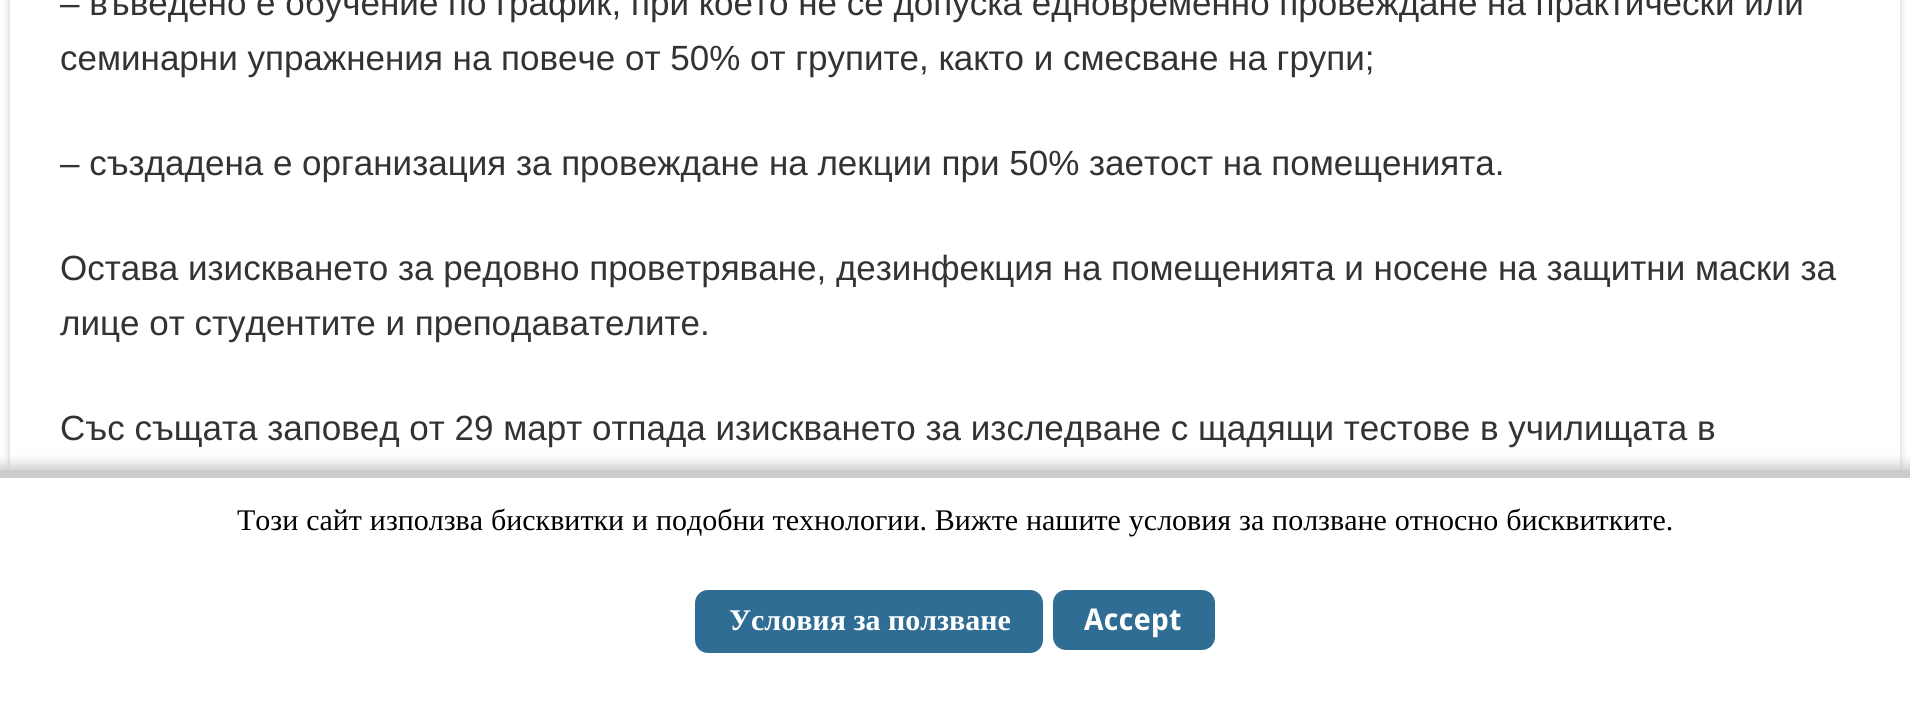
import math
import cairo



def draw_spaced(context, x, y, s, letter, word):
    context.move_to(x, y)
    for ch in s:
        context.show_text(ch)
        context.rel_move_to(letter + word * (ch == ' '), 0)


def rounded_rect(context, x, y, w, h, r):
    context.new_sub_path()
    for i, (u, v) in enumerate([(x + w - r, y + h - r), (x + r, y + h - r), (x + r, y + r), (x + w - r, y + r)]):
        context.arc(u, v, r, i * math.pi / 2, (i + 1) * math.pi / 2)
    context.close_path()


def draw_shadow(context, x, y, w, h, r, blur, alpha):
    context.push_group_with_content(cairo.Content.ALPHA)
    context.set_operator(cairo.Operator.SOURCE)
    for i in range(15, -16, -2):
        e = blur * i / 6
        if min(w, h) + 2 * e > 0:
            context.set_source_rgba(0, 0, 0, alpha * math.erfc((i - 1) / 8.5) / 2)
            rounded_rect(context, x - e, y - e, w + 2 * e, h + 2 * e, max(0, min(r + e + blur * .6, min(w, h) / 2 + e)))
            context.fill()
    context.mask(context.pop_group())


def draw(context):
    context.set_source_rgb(1, 1, 1)
    context.paint()
    context.save()
    context.set_fill_rule(cairo.FillRule.EVEN_ODD)
    context.new_path()
    context.move_to(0, 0)
    context.line_to(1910, 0)
    context.line_to(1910, 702)
    context.line_to(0, 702)
    context.close_path()
    context.move_to(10, -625)
    context.line_to(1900, -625)
    context.line_to(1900, 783)
    context.line_to(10, 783)
    context.close_path()
    context.clip()
    context.set_source_rgb(202 / 255, 202 / 255, 202 / 255)
    draw_shadow(context, 10, -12, 1890, 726, 0, 4, 1)
    context.restore()
    context.set_source_rgb(204 / 255, 204 / 255, 204 / 255)
    draw_shadow(context, -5, 465, 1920, 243, 0, 6, 1)
    context.set_source_rgb(1, 1, 1)
    context.rectangle(0, 478, 1910, 224)
    context.fill()
    context.set_source_rgb(204 / 255, 204 / 255, 204 / 255)
    context.rectangle(0, 470, 1910, 8)
    context.fill()
    context.set_source_rgb(47 / 255, 109 / 255, 148 / 255)
    rounded_rect(context, 695, 590, 348, 63, 13)
    context.fill()
    rounded_rect(context, 1053, 590, 162, 60, 13)
    context.fill()
    context.select_font_face("Liberation Sans")
    context.set_font_size(35)
    context.set_source_rgb(51 / 255, 51 / 255, 51 / 255)
    context.move_to(60, 15)
    context.show_text("– въведено е обучение по график, при което не се допуска едновременно провеждане на практически или")
    context.move_to(60, 70)
    context.show_text("семинарни упражнения на повече от 50% от групите, както и смесване на групи;")
    context.move_to(60, 175)
    context.show_text("– създадена е организация за провеждане на лекции при 50% заетост на помещенията.")
    context.move_to(60, 280)
    context.show_text("Остава изискването за редовно проветряване, дезинфекция на помещенията и носене на защитни маски за")
    context.move_to(60, 335)
    context.show_text("лице от студентите и преподавателите.")
    context.move_to(60, 440)
    context.show_text("Със същата заповед от 29 март отпада изискването за изследване с щадящи тестове в училищата в")
    context.select_font_face("Liberation Serif")
    context.set_font_size(30)
    context.set_source_rgb(0, 0, 0)
    draw_spaced(context, 237, 530, "Този сайт използва бисквитки и подобни технологии. Вижте нашите условия за ползване относно бисквитките.", 0, 0.4)
    context.select_font_face("Liberation Serif", cairo.FontSlant.NORMAL, cairo.FontWeight.BOLD)
    context.set_source_rgb(1, 1, 1)
    context.move_to(729, 630)
    context.show_text("Условия за ползване")
    context.select_font_face("Droid Sans", cairo.FontSlant.NORMAL, cairo.FontWeight.BOLD)
    context.move_to(1084, 630)
    context.show_text("Accept")


surface = cairo.ImageSurface(cairo.Format.RGB24, 1910, 702)
context = cairo.Context(surface)
options = cairo.FontOptions()
options.set_hint_metrics(cairo.HintMetrics.OFF)
options.set_hint_style(cairo.HintStyle.NONE)
context.set_font_options(options)
context.set_miter_limit(4)
draw(context)
surface.write_to_png("out.png")
